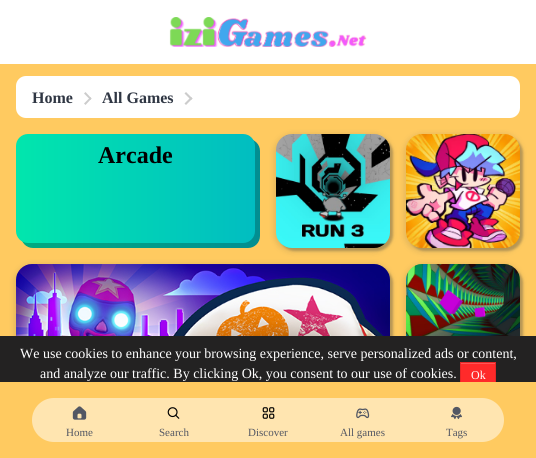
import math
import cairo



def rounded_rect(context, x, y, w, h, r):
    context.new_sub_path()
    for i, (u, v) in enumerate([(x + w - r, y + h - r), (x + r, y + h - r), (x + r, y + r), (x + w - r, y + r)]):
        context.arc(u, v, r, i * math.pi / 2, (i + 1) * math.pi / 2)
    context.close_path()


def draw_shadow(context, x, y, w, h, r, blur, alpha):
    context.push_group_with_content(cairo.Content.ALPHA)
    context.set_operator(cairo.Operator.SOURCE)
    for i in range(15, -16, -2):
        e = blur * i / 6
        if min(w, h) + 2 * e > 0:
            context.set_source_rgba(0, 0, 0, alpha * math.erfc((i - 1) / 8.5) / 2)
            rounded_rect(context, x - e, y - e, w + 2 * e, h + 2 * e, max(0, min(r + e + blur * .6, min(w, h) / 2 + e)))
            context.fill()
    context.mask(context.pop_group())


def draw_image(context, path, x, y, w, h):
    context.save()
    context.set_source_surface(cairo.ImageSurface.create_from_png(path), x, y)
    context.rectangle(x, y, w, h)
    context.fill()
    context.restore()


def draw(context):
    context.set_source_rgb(1, 1, 1)
    context.paint()
    draw_image(context, "images/1.png", 169, 17, 198, 30)
    context.set_source_rgb(1, 202 / 255, 96 / 255)
    context.rectangle(0, 64, 536, 272)
    context.fill()
    context.set_source_rgb(1, 1, 1)
    rounded_rect(context, 16, 76, 504, 42, 10)
    context.fill()
    context.set_source_rgb(204 / 255, 204 / 255, 204 / 255)
    context.new_path()
    context.move_to(84, 93.5)
    context.line_to(85.5, 92)
    context.line_to(91.5, 98.5)
    context.line_to(90.5, 100)
    context.close_path()
    context.fill()
    context.new_path()
    context.move_to(84, 103.5)
    context.line_to(90.5, 97)
    context.line_to(91.5, 98.5)
    context.line_to(85.5, 105)
    context.close_path()
    context.fill()
    context.new_path()
    context.move_to(184.5, 93.5)
    context.line_to(186, 92)
    context.line_to(192.5, 98.5)
    context.line_to(191, 100)
    context.close_path()
    context.fill()
    context.new_path()
    context.move_to(184.5, 103.5)
    context.line_to(191, 97)
    context.line_to(192.5, 98.5)
    context.line_to(186, 105)
    context.close_path()
    context.fill()
    gradient = cairo.LinearGradient(21, 194, 260, 194)
    gradient.add_color_stop_rgba(0, 0, 171 / 255, 128 / 255, 1)
    gradient.add_color_stop_rgba(1, 2 / 255, 142 / 255, 145 / 255, 1)
    context.set_source(gradient)
    rounded_rect(context, 21, 139, 239, 109, 12)
    context.fill()
    gradient = cairo.LinearGradient(16, 189, 255, 189)
    gradient.add_color_stop_rgba(0, 1 / 255, 230 / 255, 173 / 255, 1)
    gradient.add_color_stop_rgba(1, 1 / 255, 189 / 255, 193 / 255, 1)
    context.set_source(gradient)
    rounded_rect(context, 16, 134, 239, 109, 12)
    context.fill()
    context.set_source_rgb(60 / 255, 64 / 255, 67 / 255)
    draw_shadow(context, 274, 134, 118, 118, 18, 3, 0.15)
    draw_shadow(context, 279, 137, 114, 114, 16, 1, 0.3)
    draw_image(context, "images/2.png", 276, 134, 114, 114)
    draw_shadow(context, 404, 134, 118, 118, 18, 3, 0.15)
    draw_shadow(context, 409, 137, 114, 114, 16, 1, 0.3)
    draw_image(context, "images/3.png", 406, 134, 114, 114)
    draw_shadow(context, 14, 264, 378, 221, 18, 3, 0.15)
    draw_shadow(context, 19, 267, 374, 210, 16, 1, 0.3)
    draw_image(context, "images/4.png", 16, 264, 374, 72)
    draw_shadow(context, 404, 264, 118, 118, 18, 3, 0.15)
    draw_shadow(context, 409, 267, 114, 114, 16, 1, 0.3)
    draw_image(context, "images/5.png", 406, 264, 114, 72)
    context.set_source_rgb(35 / 255, 34 / 255, 34 / 255)
    context.rectangle(0, 336, 536, 46)
    context.fill()
    context.set_source_rgb(1, 42 / 255, 42 / 255)
    context.rectangle(460, 362, 36, 20)
    context.fill()
    context.set_source_rgb(1, 85 / 255, 85 / 255)
    context.rectangle(461, 363, 34, 1)
    context.fill()
    context.set_source_rgb(230 / 255, 38 / 255, 38 / 255)
    context.new_path()
    context.move_to(460, 362)
    context.line_to(496, 362)
    context.line_to(495, 363)
    context.line_to(461, 363)
    context.close_path()
    context.fill()
    context.set_source_rgba(0, 0, 0, 0.1)
    context.new_path()
    context.move_to(496, 362)
    context.line_to(496, 388)
    context.line_to(495, 387)
    context.line_to(495, 363)
    context.close_path()
    context.move_to(460, 388)
    context.line_to(460, 362)
    context.line_to(461, 363)
    context.line_to(461, 387)
    context.close_path()
    context.fill()
    context.set_source_rgb(1, 202 / 255, 96 / 255)
    context.rectangle(0, 382, 536, 76)
    context.fill()
    context.set_source_rgb(1, 229 / 255, 176 / 255)
    rounded_rect(context, 32, 398, 472, 44, 22)
    context.fill()
    draw_image(context, "images/6.png", 72, 406, 15, 14)
    draw_image(context, "images/7.png", 167, 407, 13, 12)
    draw_image(context, "images/8.png", 262, 407, 13, 12)
    draw_image(context, "images/9.png", 356, 408, 14, 11)
    draw_image(context, "images/10.png", 451, 406, 11, 14)
    context.select_font_face("Liberation Serif", cairo.FontSlant.NORMAL, cairo.FontWeight.BOLD)
    context.set_font_size(16)
    context.set_source_rgb(47 / 255, 54 / 255, 67 / 255)
    context.move_to(32, 103)
    context.show_text("Home")
    context.move_to(102, 103)
    context.show_text("All Games")
    context.set_font_size(24)
    context.set_source_rgb(0, 0, 0)
    context.move_to(98, 163)
    context.show_text("Arcade")
    context.select_font_face("Liberation Serif")
    context.set_font_size(14)
    context.set_source_rgb(1, 1, 1)
    context.move_to(20, 358)
    context.show_text("We use cookies to enhance your browsing experience, serve personalized ads or content,")
    context.move_to(40, 378)
    context.show_text("and analyze our traffic. By clicking Ok, you consent to our use of cookies.")
    context.set_font_size(12)
    context.move_to(471, 379)
    context.show_text("Ok")
    context.set_font_size(11)
    context.set_source_rgb(83 / 255, 87 / 255, 99 / 255)
    context.move_to(66, 436)
    context.show_text("Home")
    context.move_to(159, 436)
    context.show_text("Search")
    context.move_to(248, 436)
    context.show_text("Discover")
    context.move_to(340, 436)
    context.show_text("All games")
    context.move_to(446, 436)
    context.show_text("Tags")


surface = cairo.ImageSurface(cairo.Format.RGB24, 536, 458)
context = cairo.Context(surface)
options = cairo.FontOptions()
options.set_hint_metrics(cairo.HintMetrics.OFF)
options.set_hint_style(cairo.HintStyle.NONE)
context.set_font_options(options)
context.set_miter_limit(4)
draw(context)
surface.write_to_png("out.png")
